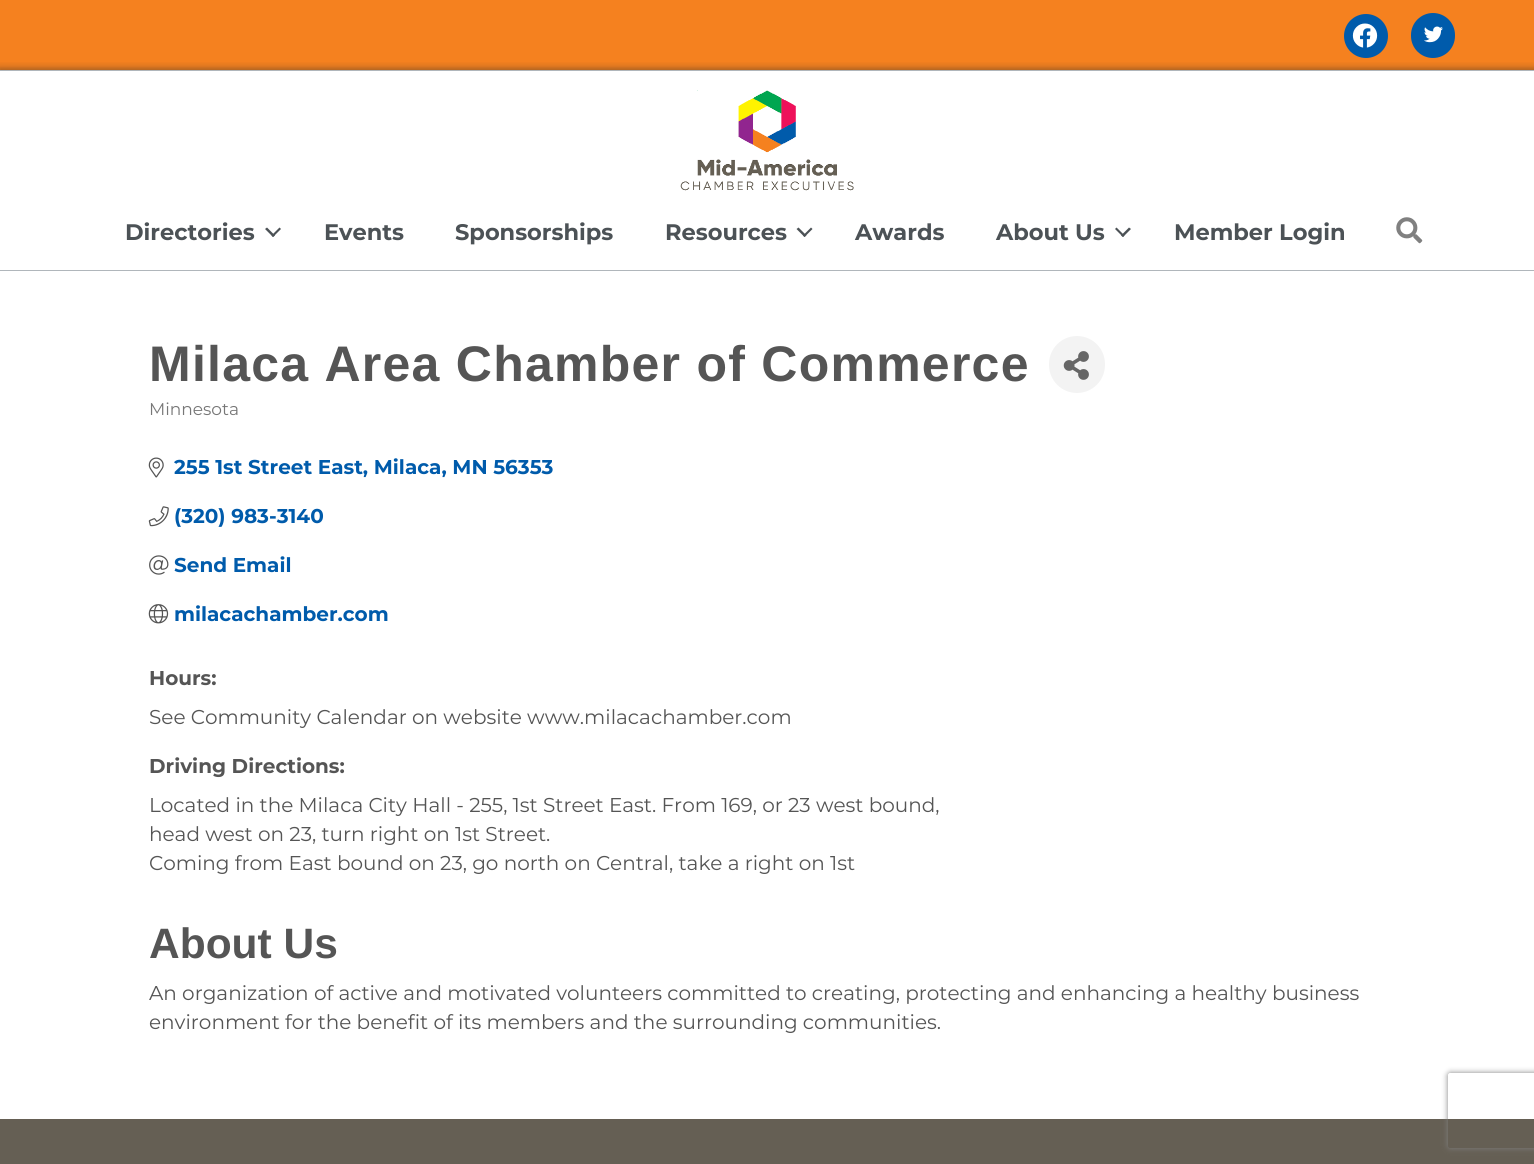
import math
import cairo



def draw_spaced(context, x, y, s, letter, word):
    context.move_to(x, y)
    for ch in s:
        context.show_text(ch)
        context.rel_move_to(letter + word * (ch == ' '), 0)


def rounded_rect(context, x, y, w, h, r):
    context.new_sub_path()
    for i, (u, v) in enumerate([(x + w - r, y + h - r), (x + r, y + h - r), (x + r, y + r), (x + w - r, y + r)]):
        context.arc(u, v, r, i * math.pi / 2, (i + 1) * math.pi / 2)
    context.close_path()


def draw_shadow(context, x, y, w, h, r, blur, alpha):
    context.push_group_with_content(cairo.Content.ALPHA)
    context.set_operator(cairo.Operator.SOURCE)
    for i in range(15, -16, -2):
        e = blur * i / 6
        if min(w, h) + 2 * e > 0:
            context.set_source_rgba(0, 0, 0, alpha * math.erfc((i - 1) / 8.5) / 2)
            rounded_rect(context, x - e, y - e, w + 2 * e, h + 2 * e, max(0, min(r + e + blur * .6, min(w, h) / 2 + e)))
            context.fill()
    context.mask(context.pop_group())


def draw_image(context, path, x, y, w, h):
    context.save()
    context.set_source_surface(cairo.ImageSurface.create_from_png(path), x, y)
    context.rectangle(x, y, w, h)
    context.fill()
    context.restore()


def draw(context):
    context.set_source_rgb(1, 1, 1)
    context.paint()
    context.set_source_rgb(245 / 255, 129 / 255, 31 / 255)
    context.rectangle(0, 0, 1534, 70)
    context.fill()
    context.set_source_rgb(0, 91 / 255, 171 / 255)
    context.arc(1366, 36, 22, 0, 2 * math.pi)
    context.fill()
    draw_image(context, "images/1.png", 1352, 23, 26, 25)
    rounded_rect(context, 1411, 13, 44, 45, 22)
    context.fill()
    draw_image(context, "images/2.png", 1424, 26, 19, 17)
    context.save()
    context.rectangle(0, 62, 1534, 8)
    context.clip()
    context.set_source_rgb(0, 21 / 255, 36 / 255)
    draw_shadow(context, -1, 69, 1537, 204, 0, 4, 0.43)
    context.restore()
    context.set_source_rgb(176 / 255, 182 / 255, 187 / 255)
    context.rectangle(0, 70, 1534, 1)
    context.fill()
    context.rectangle(0, 270, 1534, 1)
    context.fill()
    draw_image(context, "images/3.png", 680, 90, 174, 101)
    context.set_source_rgb(76 / 255, 82 / 255, 86 / 255)
    context.new_path()
    context.move_to(279.5, 227.5)
    context.line_to(281, 229)
    context.line_to(273, 237)
    context.line_to(271.5, 235.5)
    context.close_path()
    context.fill()
    context.new_path()
    context.move_to(267, 227.5)
    context.line_to(275, 235.5)
    context.line_to(273, 237)
    context.line_to(265, 229)
    context.close_path()
    context.fill()
    context.new_path()
    context.move_to(811, 227.5)
    context.line_to(812.5, 229)
    context.line_to(804.5, 237)
    context.line_to(803, 235.5)
    context.close_path()
    context.fill()
    context.new_path()
    context.move_to(798.5, 227.5)
    context.line_to(806.5, 235.5)
    context.line_to(804.5, 237)
    context.line_to(796.5, 229)
    context.close_path()
    context.fill()
    context.new_path()
    context.move_to(1129, 227.5)
    context.line_to(1131, 229)
    context.line_to(1123, 237)
    context.line_to(1121, 235.5)
    context.close_path()
    context.fill()
    context.new_path()
    context.move_to(1116.5, 227.5)
    context.line_to(1124.5, 235.5)
    context.line_to(1123, 237)
    context.line_to(1115, 229)
    context.close_path()
    context.fill()
    draw_image(context, "images/4.png", 1396, 217, 27, 27)
    context.set_source_rgb(1, 1, 1)
    context.rectangle(0, 271, 1534, 10)
    context.fill()
    context.set_source_rgb(243 / 255, 243 / 255, 243 / 255)
    rounded_rect(context, 1049, 336, 56, 57, 28)
    context.fill()
    draw_image(context, "images/5.png", 1063, 351, 26, 29)
    draw_image(context, "images/6.png", 148, 457, 16, 21)
    draw_image(context, "images/7.png", 148, 506, 21, 21)
    draw_image(context, "images/8.png", 149, 555, 20, 20)
    draw_image(context, "images/9.png", 148, 604, 21, 20)
    context.set_source_rgb(101 / 255, 95 / 255, 84 / 255)
    context.rectangle(0, 1119, 1534, 45)
    context.fill()
    context.save()
    context.set_fill_rule(cairo.FillRule.EVEN_ODD)
    context.new_path()
    context.move_to(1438, 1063)
    context.line_to(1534, 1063)
    context.line_to(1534, 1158)
    context.line_to(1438, 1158)
    context.close_path()
    context.move_to(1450.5, 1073)
    context.line_to(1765.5, 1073)
    context.curve_to(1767, 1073, 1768, 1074, 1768, 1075.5)
    context.line_to(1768, 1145.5)
    context.curve_to(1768, 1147, 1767, 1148, 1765.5, 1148)
    context.line_to(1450.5, 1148)
    context.curve_to(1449, 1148, 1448, 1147, 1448, 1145.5)
    context.line_to(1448, 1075.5)
    context.curve_to(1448, 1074, 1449, 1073, 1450.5, 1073)
    context.close_path()
    context.clip()
    context.set_source_rgb(128 / 255, 128 / 255, 128 / 255)
    draw_shadow(context, 1448, 1073, 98, 75, 2.5, 3, 1)
    context.restore()
    context.select_font_face("Montserrat", cairo.FontSlant.NORMAL, cairo.FontWeight.BOLD)
    context.set_font_size(22.5)
    context.set_source_rgb(76 / 255, 82 / 255, 86 / 255)
    context.move_to(125, 240)
    context.show_text("Directories")
    context.move_to(324, 240)
    context.show_text("Events")
    context.move_to(455, 240)
    context.show_text("Sponsorships")
    context.move_to(665, 240)
    context.show_text("Resources")
    context.move_to(855, 240)
    context.show_text("Awards")
    context.move_to(996, 240)
    context.show_text("About Us")
    context.move_to(1174, 240)
    context.show_text("Member Login")
    context.select_font_face("Liberation Sans", cairo.FontSlant.NORMAL, cairo.FontWeight.BOLD)
    context.set_font_size(50)
    context.set_source_rgb(85 / 255, 85 / 255, 85 / 255)
    draw_spaced(context, 149, 381, "Milaca Area Chamber of Commerce", 1.25, 0)
    context.select_font_face("Montserrat")
    context.set_font_size(17)
    context.set_source_rgb(119 / 255, 119 / 255, 119 / 255)
    context.move_to(149, 415)
    context.show_text("Minnesota")
    context.select_font_face("Montserrat", cairo.FontSlant.NORMAL, cairo.FontWeight.BOLD)
    context.set_font_size(20)
    context.set_source_rgb(0, 91 / 255, 171 / 255)
    context.move_to(174, 474)
    context.show_text("255 1st Street East, Milaca, MN 56353")
    context.move_to(174, 523)
    context.show_text("(320) 983-3140")
    context.move_to(174, 572)
    context.show_text("Send Email")
    context.move_to(174, 621)
    context.show_text("milacachamber.com")
    context.set_source_rgb(85 / 255, 85 / 255, 85 / 255)
    context.move_to(149, 685)
    context.show_text("Hours:")
    context.select_font_face("Montserrat")
    context.move_to(149, 724)
    context.show_text("See Community Calendar on website www.milacachamber.com")
    context.select_font_face("Montserrat", cairo.FontSlant.NORMAL, cairo.FontWeight.BOLD)
    context.move_to(149, 773)
    context.show_text("Driving Directions:")
    context.select_font_face("Montserrat")
    context.move_to(149, 812)
    context.show_text("Located in the Milaca City Hall - 255, 1st Street East. From 169, or 23 west bound,")
    context.move_to(149, 841)
    context.show_text("head west on 23, turn right on 1st Street.")
    context.move_to(149, 870)
    context.show_text("Coming from East bound on 23, go north on Central, take a right on 1st")
    context.select_font_face("Liberation Sans", cairo.FontSlant.NORMAL, cairo.FontWeight.BOLD)
    context.set_font_size(42.5)
    context.move_to(149, 958)
    context.show_text("About Us")
    context.select_font_face("Montserrat")
    context.set_font_size(20)
    context.move_to(149, 1000)
    context.show_text("An organization of active and motivated volunteers committed to creating, protecting and enhancing a healthy business")
    context.move_to(149, 1029)
    context.show_text("environment for the benefit of its members and the surrounding communities.")


surface = cairo.ImageSurface(cairo.Format.RGB24, 1534, 1164)
context = cairo.Context(surface)
options = cairo.FontOptions()
options.set_hint_metrics(cairo.HintMetrics.OFF)
options.set_hint_style(cairo.HintStyle.NONE)
context.set_font_options(options)
context.set_miter_limit(4)
draw(context)
surface.write_to_png("out.png")
